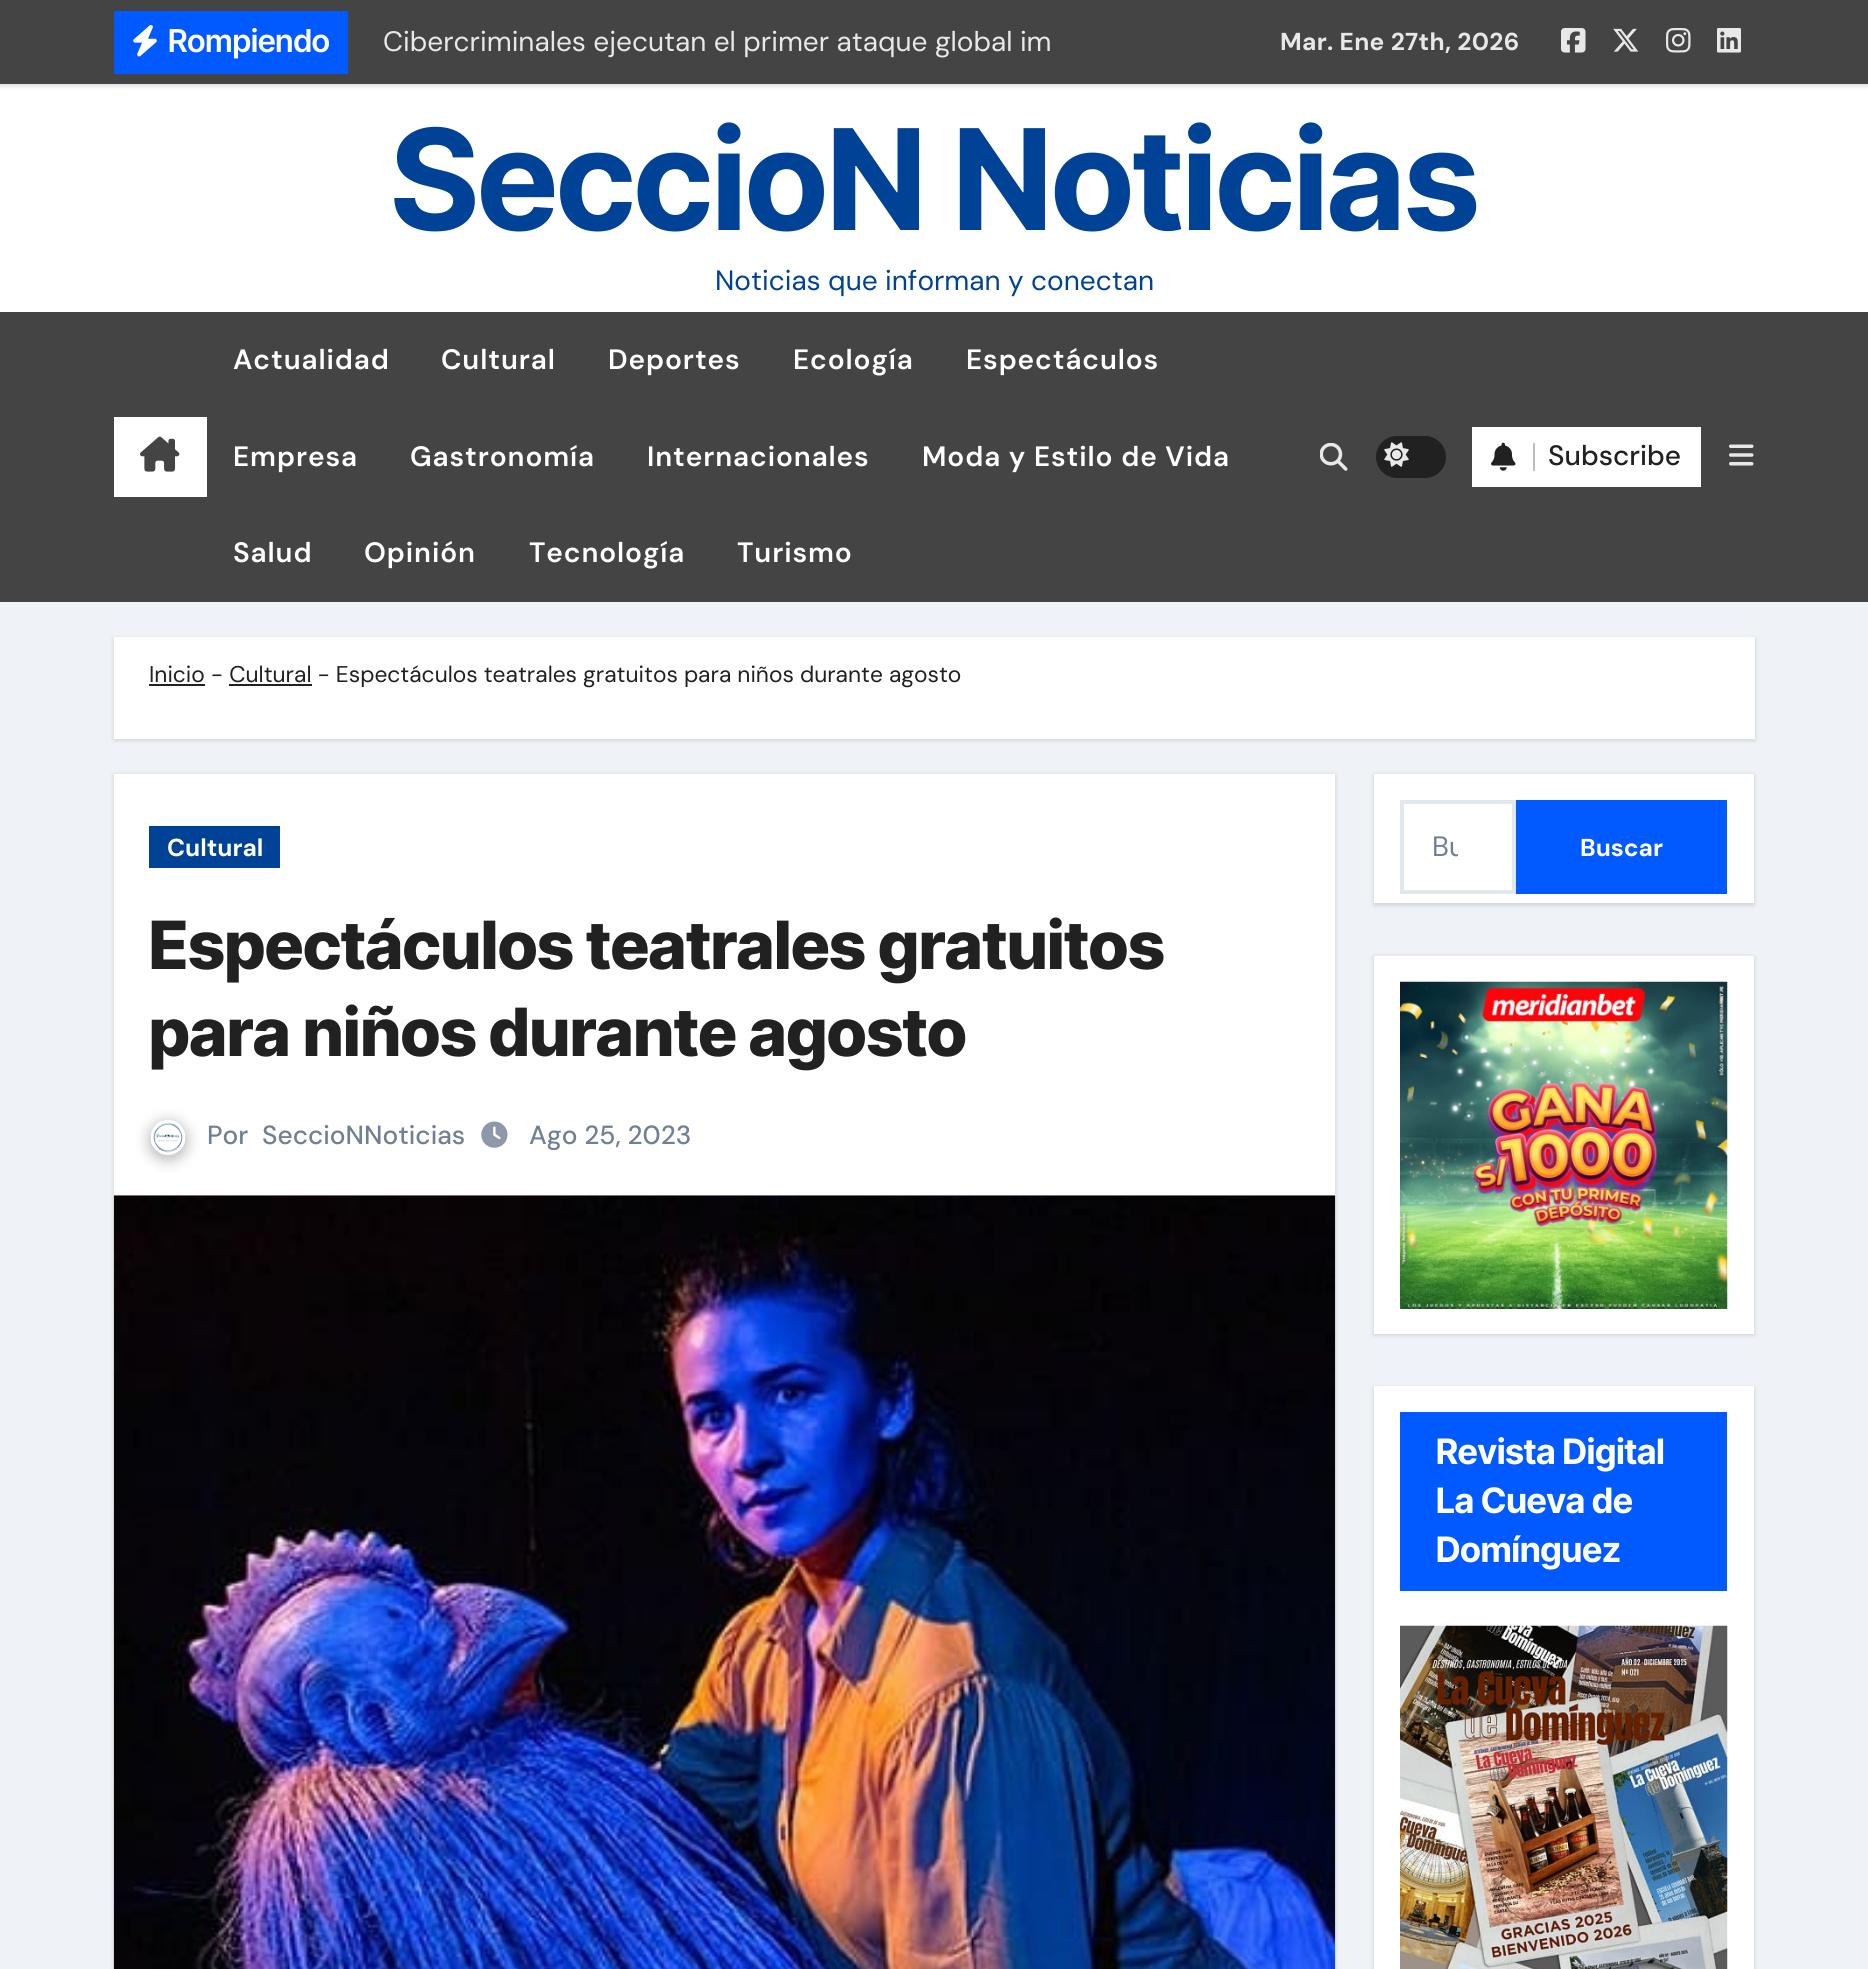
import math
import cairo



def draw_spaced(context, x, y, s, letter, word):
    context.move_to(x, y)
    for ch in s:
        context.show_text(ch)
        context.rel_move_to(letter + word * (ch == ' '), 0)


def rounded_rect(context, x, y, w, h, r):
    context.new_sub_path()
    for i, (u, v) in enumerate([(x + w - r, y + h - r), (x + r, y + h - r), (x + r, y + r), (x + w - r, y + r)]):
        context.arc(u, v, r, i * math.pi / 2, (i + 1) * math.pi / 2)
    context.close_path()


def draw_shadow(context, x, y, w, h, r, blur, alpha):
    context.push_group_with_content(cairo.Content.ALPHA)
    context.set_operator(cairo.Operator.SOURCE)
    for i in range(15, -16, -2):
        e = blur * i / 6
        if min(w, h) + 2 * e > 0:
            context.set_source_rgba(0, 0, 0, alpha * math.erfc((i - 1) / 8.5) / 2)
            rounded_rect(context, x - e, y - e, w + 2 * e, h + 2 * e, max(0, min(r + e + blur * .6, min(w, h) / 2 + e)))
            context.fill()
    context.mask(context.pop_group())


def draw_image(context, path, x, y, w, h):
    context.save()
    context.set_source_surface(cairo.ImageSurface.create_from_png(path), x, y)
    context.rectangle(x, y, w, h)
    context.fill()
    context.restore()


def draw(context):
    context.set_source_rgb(239 / 255, 242 / 255, 247 / 255)
    context.paint()
    context.set_source_rgb(1, 1, 1)
    context.rectangle(0, 84, 1868, 228)
    context.fill()
    context.set_source_rgb(0, 0, 0)
    draw_shadow(context, 0, 2, 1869, 84, 0, 2.5, 0.15)
    context.set_source_rgb(68 / 255, 68 / 255, 68 / 255)
    context.rectangle(0, 0, 1868, 84)
    context.fill()
    context.set_source_rgb(0, 90 / 255, 1)
    context.rectangle(114, 11, 234, 63)
    context.fill()
    draw_image(context, "images/1.png", 133, 25, 24, 32)
    draw_image(context, "images/2.png", 1561, 28, 25, 25)
    draw_image(context, "images/3.png", 1613, 28, 26, 24)
    draw_image(context, "images/4.png", 1666, 28, 25, 25)
    draw_image(context, "images/5.png", 1717, 28, 24, 25)
    context.set_source_rgb(68 / 255, 68 / 255, 68 / 255)
    context.rectangle(0, 312, 1868, 290)
    context.fill()
    context.set_source_rgb(1, 1, 1)
    context.rectangle(114, 417, 93, 80)
    context.fill()
    draw_image(context, "images/6.png", 140, 436, 40, 36)
    draw_image(context, "images/7.png", 1320, 443, 28, 28)
    context.set_source_rgb(33 / 255, 33 / 255, 33 / 255)
    rounded_rect(context, 1376, 436, 70, 42, 21)
    context.fill()
    draw_image(context, "images/8.png", 1384, 442, 25, 25)
    context.set_source_rgb(1, 1, 1)
    context.rectangle(1472, 427, 229, 60)
    context.fill()
    draw_image(context, "images/9.png", 1491, 442, 25, 29)
    context.set_source_rgb(189 / 255, 189 / 255, 189 / 255)
    context.rectangle(1533, 443, 2, 28)
    context.fill()
    draw_image(context, "images/10.png", 1729, 444, 25, 22)
    context.set_source_rgb(0, 0, 0)
    draw_shadow(context, 114, 639, 1641, 101, 0, 2.5, 0.15)
    context.set_source_rgb(1, 1, 1)
    context.rectangle(114, 637, 1641, 102)
    context.fill()
    context.set_source_rgb(33 / 255, 33 / 255, 33 / 255)
    context.rectangle(149, 684, 56, 2)
    context.fill()
    context.rectangle(229, 684, 83, 2)
    context.fill()
    context.set_source_rgb(0, 0, 0)
    draw_shadow(context, 114, 775, 1221, 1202, 0, 2.5, 0.15)
    context.set_source_rgb(1, 1, 1)
    context.rectangle(114, 774, 1221, 422)
    context.fill()
    context.set_source_rgb(0, 67 / 255, 150 / 255)
    context.rectangle(149, 826, 131, 42)
    context.fill()
    context.set_source_rgb(33 / 255, 33 / 255, 33 / 255)
    draw_shadow(context, 149, 1122, 38, 38, 19, 7, 0.3)
    draw_image(context, "images/11.png", 150, 1120, 36, 35)
    draw_image(context, "images/12.png", 481, 1121, 27, 27)
    draw_image(context, "images/13.png", 113, 1195, 1223, 774)
    context.set_source_rgb(0, 0, 0)
    draw_shadow(context, 1374, 775, 380, 130, 0, 2.5, 0.15)
    context.set_source_rgb(1, 1, 1)
    context.rectangle(1374, 774, 380, 129)
    context.fill()
    context.rectangle(1402, 802, 112, 90)
    context.set_source_rgb(226 / 255, 232 / 255, 240 / 255)
    context.set_line_width(4)
    context.stroke()
    context.set_source_rgb(0, 90 / 255, 1)
    context.rectangle(1516, 800, 211, 94)
    context.fill()
    context.set_source_rgb(0, 0, 0)
    draw_shadow(context, 1374, 957, 380, 378, 0, 2.5, 0.15)
    context.set_source_rgb(1, 1, 1)
    context.rectangle(1374, 956, 380, 378)
    context.fill()
    draw_image(context, "images/14.png", 1400, 981, 328, 328)
    context.set_source_rgb(0, 0, 0)
    draw_shadow(context, 1374, 1388, 380, 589, 0, 2.5, 0.15)
    context.set_source_rgb(1, 1, 1)
    context.rectangle(1374, 1386, 380, 583)
    context.fill()
    context.set_source_rgb(0, 90 / 255, 1)
    context.rectangle(1400, 1412, 327, 179)
    context.fill()
    draw_image(context, "images/15.png", 1400, 1625, 328, 344)
    context.select_font_face("Inter Tight SemiBold")
    context.set_font_size(31.5)
    context.set_source_rgb(1, 1, 1)
    context.move_to(168, 52)
    context.show_text("Rompiendo")
    context.select_font_face("DM Sans")
    context.set_font_size(28)
    context.set_source_rgb(232 / 255, 232 / 255, 232 / 255)
    context.move_to(383, 51)
    context.show_text("Cibercriminales ejecutan el primer ataque global im")
    context.select_font_face("DM Sans", cairo.FontSlant.NORMAL, cairo.FontWeight.BOLD)
    context.set_font_size(24.5)
    draw_spaced(context, 1280, 50, "Mar. Ene 27th, 2026", 0.3, 0)
    context.select_font_face("Inter Tight", cairo.FontSlant.NORMAL, cairo.FontWeight.BOLD)
    context.set_font_size(140)
    context.set_source_rgb(0, 67 / 255, 150 / 255)
    context.move_to(391, 230)
    context.show_text("SeccioN Noticias")
    context.select_font_face("DM Sans")
    context.set_font_size(28)
    context.move_to(715, 290)
    context.show_text("Noticias que informan y conectan")
    context.select_font_face("DM Sans SemiBold")
    context.set_source_rgb(1, 1, 1)
    draw_spaced(context, 233, 369, "Actualidad", 0.9, 0)
    draw_spaced(context, 441, 369, "Cultural", 0.9, 0)
    draw_spaced(context, 608, 369, "Deportes", 0.9, 0)
    draw_spaced(context, 793, 369, "Ecología", 0.9, 0)
    draw_spaced(context, 966, 369, "Espectáculos", 0.9, 0)
    draw_spaced(context, 233, 466, "Empresa", 0.9, 0)
    draw_spaced(context, 410, 466, "Gastronomía", 0.9, 0)
    draw_spaced(context, 647, 466, "Internacionales", 0.9, 0)
    draw_spaced(context, 922, 466, "Moda y Estilo de Vida", 0.9, 0)
    draw_spaced(context, 233, 562, "Salud", 0.9, 0)
    draw_spaced(context, 364, 562, "Opinión", 0.9, 0)
    draw_spaced(context, 529, 562, "Tecnología", 0.9, 0)
    draw_spaced(context, 737, 562, "Turismo", 0.9, 0)
    context.select_font_face("DM Sans Medium")
    context.set_source_rgb(33 / 255, 33 / 255, 33 / 255)
    context.move_to(1548, 465)
    context.show_text("Subscribe")
    context.select_font_face("DM Sans")
    context.set_font_size(22.75)
    context.move_to(149, 682)
    context.show_text("Inicio - Cultural - Espectáculos teatrales gratuitos para niños durante agosto")
    context.select_font_face("DM Sans", cairo.FontSlant.NORMAL, cairo.FontWeight.BOLD)
    context.set_font_size(24.5)
    context.set_source_rgb(1, 1, 1)
    context.move_to(167, 856)
    context.show_text("Cultural")
    context.select_font_face("Inter Tight ExtraBold")
    context.set_font_size(66.5)
    context.set_source_rgb(33 / 255, 33 / 255, 33 / 255)
    context.move_to(149, 969)
    context.show_text("Espectáculos teatrales gratuitos")
    context.move_to(149, 1056)
    context.show_text("para niños durante agosto")
    context.select_font_face("DM Sans Medium")
    context.set_font_size(26.25)
    context.set_source_rgb(113 / 255, 128 / 255, 150 / 255)
    context.move_to(207, 1144)
    context.show_text("Por")
    context.move_to(262, 1144)
    context.show_text("SeccioNNoticias")
    context.move_to(529, 1144)
    context.show_text("Ago 25, 2023")
    context.save()
    context.rectangle(1432, 828, 26, 37)
    context.clip()
    context.select_font_face("DM Sans")
    context.set_font_size(28)
    context.move_to(1432, 856)
    context.show_text("Bu")
    context.restore()
    context.select_font_face("DM Sans", cairo.FontSlant.NORMAL, cairo.FontWeight.BOLD)
    context.set_font_size(24.5)
    context.set_source_rgb(1, 1, 1)
    context.move_to(1580, 856)
    context.show_text("Buscar")
    context.select_font_face("Inter Tight", cairo.FontSlant.NORMAL, cairo.FontWeight.BOLD)
    context.set_font_size(35)
    context.move_to(1436, 1464)
    context.show_text("Revista Digital")
    context.move_to(1436, 1513)
    context.show_text("La Cueva de")
    context.move_to(1436, 1562)
    context.show_text("Domínguez")


surface = cairo.ImageSurface(cairo.Format.RGB24, 1868, 1969)
context = cairo.Context(surface)
options = cairo.FontOptions()
options.set_hint_metrics(cairo.HintMetrics.OFF)
options.set_hint_style(cairo.HintStyle.NONE)
context.set_font_options(options)
context.set_miter_limit(4)
draw(context)
surface.write_to_png("out.png")
